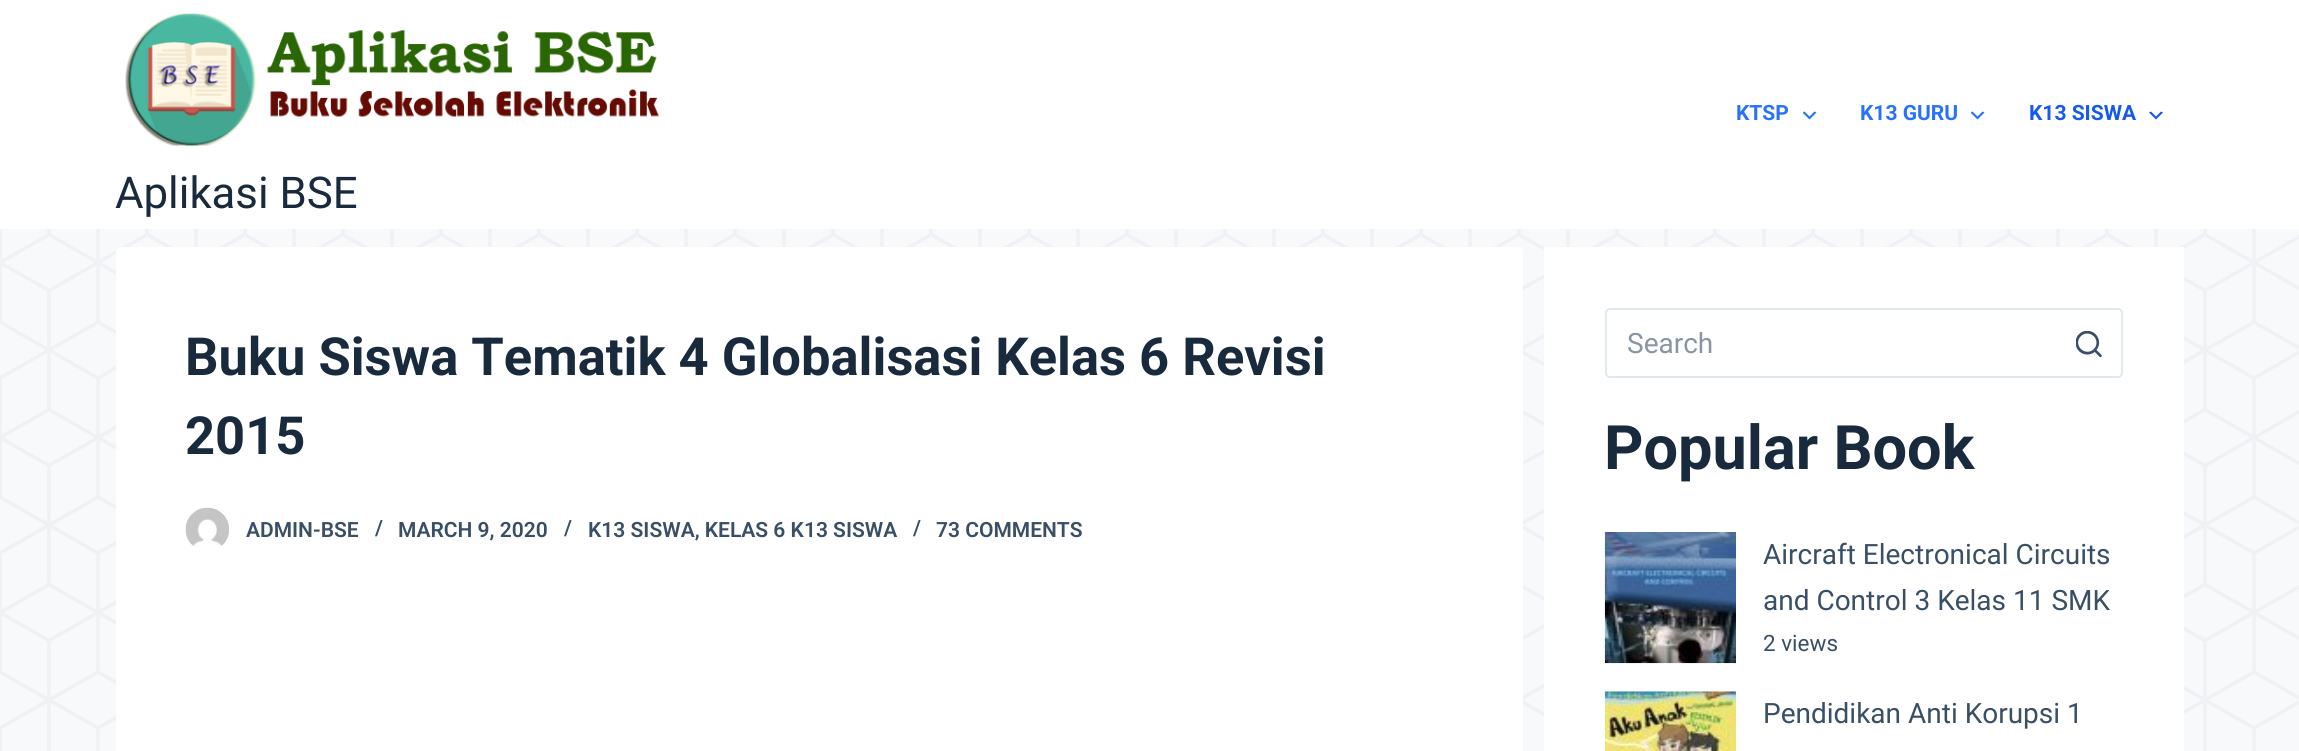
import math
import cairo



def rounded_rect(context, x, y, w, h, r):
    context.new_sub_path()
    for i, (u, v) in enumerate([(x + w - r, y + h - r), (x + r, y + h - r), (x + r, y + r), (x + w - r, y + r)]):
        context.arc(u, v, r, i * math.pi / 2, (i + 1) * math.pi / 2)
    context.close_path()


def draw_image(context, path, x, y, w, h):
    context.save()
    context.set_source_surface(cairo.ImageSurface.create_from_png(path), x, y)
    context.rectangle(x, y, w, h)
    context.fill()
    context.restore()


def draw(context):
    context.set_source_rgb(248 / 255, 249 / 255, 251 / 255)
    context.paint()
    draw_image(context, "images/1.png", 0, 229, 2299, 522)
    context.set_source_rgb(1, 1, 1)
    context.rectangle(0, 0, 2299, 229)
    context.fill()
    draw_image(context, "images/2.png", 1803, 111, 14, 9)
    draw_image(context, "images/2.png", 1971, 111, 14, 9)
    draw_image(context, "images/3.png", 2149, 111, 14, 9)
    draw_image(context, "images/4.png", 125, 13, 534, 133)
    rounded_rect(context, 116, 247, 1407, 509, 5)
    context.fill()
    draw_image(context, "images/5.png", 185, 507, 44, 41)
    context.rectangle(1544, 247, 640, 504)
    context.fill()
    rounded_rect(context, 1606, 309, 516, 68, 4)
    context.set_source_rgb(225 / 255, 232 / 255, 237 / 255)
    context.stroke()
    draw_image(context, "images/6.png", 2076, 331, 26, 26)
    draw_image(context, "images/7.png", 1604, 532, 132, 132)
    draw_image(context, "images/8.png", 1604, 691, 132, 60)
    context.select_font_face("Roboto", cairo.FontSlant.NORMAL, cairo.FontWeight.BOLD)
    context.set_font_size(21)
    context.set_source_rgb(40 / 255, 114 / 255, 250 / 255)
    context.move_to(1736, 120)
    context.show_text("KTSP")
    context.move_to(1860, 120)
    context.show_text("K13 GURU")
    context.set_source_rgb(21 / 255, 89 / 255, 237 / 255)
    context.move_to(2029, 120)
    context.show_text("K13 SISWA")
    context.select_font_face("Roboto")
    context.set_font_size(43.75)
    context.set_source_rgb(25 / 255, 42 / 255, 61 / 255)
    context.move_to(115, 208)
    context.show_text("Aplikasi BSE")
    context.select_font_face("Roboto", cairo.FontSlant.NORMAL, cairo.FontWeight.BOLD)
    context.set_font_size(52.5)
    context.move_to(185, 375)
    context.show_text("Buku Siswa Tematik 4 Globalisasi Kelas 6 Revisi")
    context.move_to(185, 454)
    context.show_text("2015")
    context.select_font_face("Roboto SemiBold")
    context.set_font_size(21)
    context.set_source_rgb(58 / 255, 79 / 255, 102 / 255)
    context.move_to(246, 537)
    context.show_text("ADMIN-BSE")
    context.move_to(375, 535)
    context.show_text("/")
    context.move_to(398, 537)
    context.show_text("MARCH 9, 2020")
    context.move_to(564, 535)
    context.show_text("/")
    context.move_to(588, 537)
    context.show_text("K13 SISWA, KELAS 6 K13 SISWA")
    context.move_to(913, 535)
    context.show_text("/")
    context.move_to(936, 537)
    context.show_text("73 COMMENTS")
    context.select_font_face("Roboto")
    context.set_font_size(28)
    context.set_source_rgb(137 / 255, 149 / 255, 163 / 255)
    context.move_to(1627, 353)
    context.show_text("Search")
    context.select_font_face("Roboto", cairo.FontSlant.NORMAL, cairo.FontWeight.BOLD)
    context.set_font_size(61.25)
    context.set_source_rgb(25 / 255, 42 / 255, 61 / 255)
    context.move_to(1604, 469)
    context.show_text("Popular Book")
    context.select_font_face("Roboto")
    context.set_font_size(28)
    context.set_source_rgb(58 / 255, 79 / 255, 102 / 255)
    context.move_to(1763, 564)
    context.show_text("Aircraft Electronical Circuits")
    context.move_to(1763, 610)
    context.show_text("and Control 3 Kelas 11 SMK")
    context.set_font_size(22.5)
    context.move_to(1763, 651)
    context.show_text("2 views")
    context.set_font_size(28)
    context.move_to(1763, 723)
    context.show_text("Pendidikan Anti Korupsi 1")


surface = cairo.ImageSurface(cairo.Format.RGB24, 2299, 751)
context = cairo.Context(surface)
options = cairo.FontOptions()
options.set_hint_metrics(cairo.HintMetrics.OFF)
options.set_hint_style(cairo.HintStyle.NONE)
context.set_font_options(options)
context.set_miter_limit(4)
draw(context)
surface.write_to_png("out.png")
